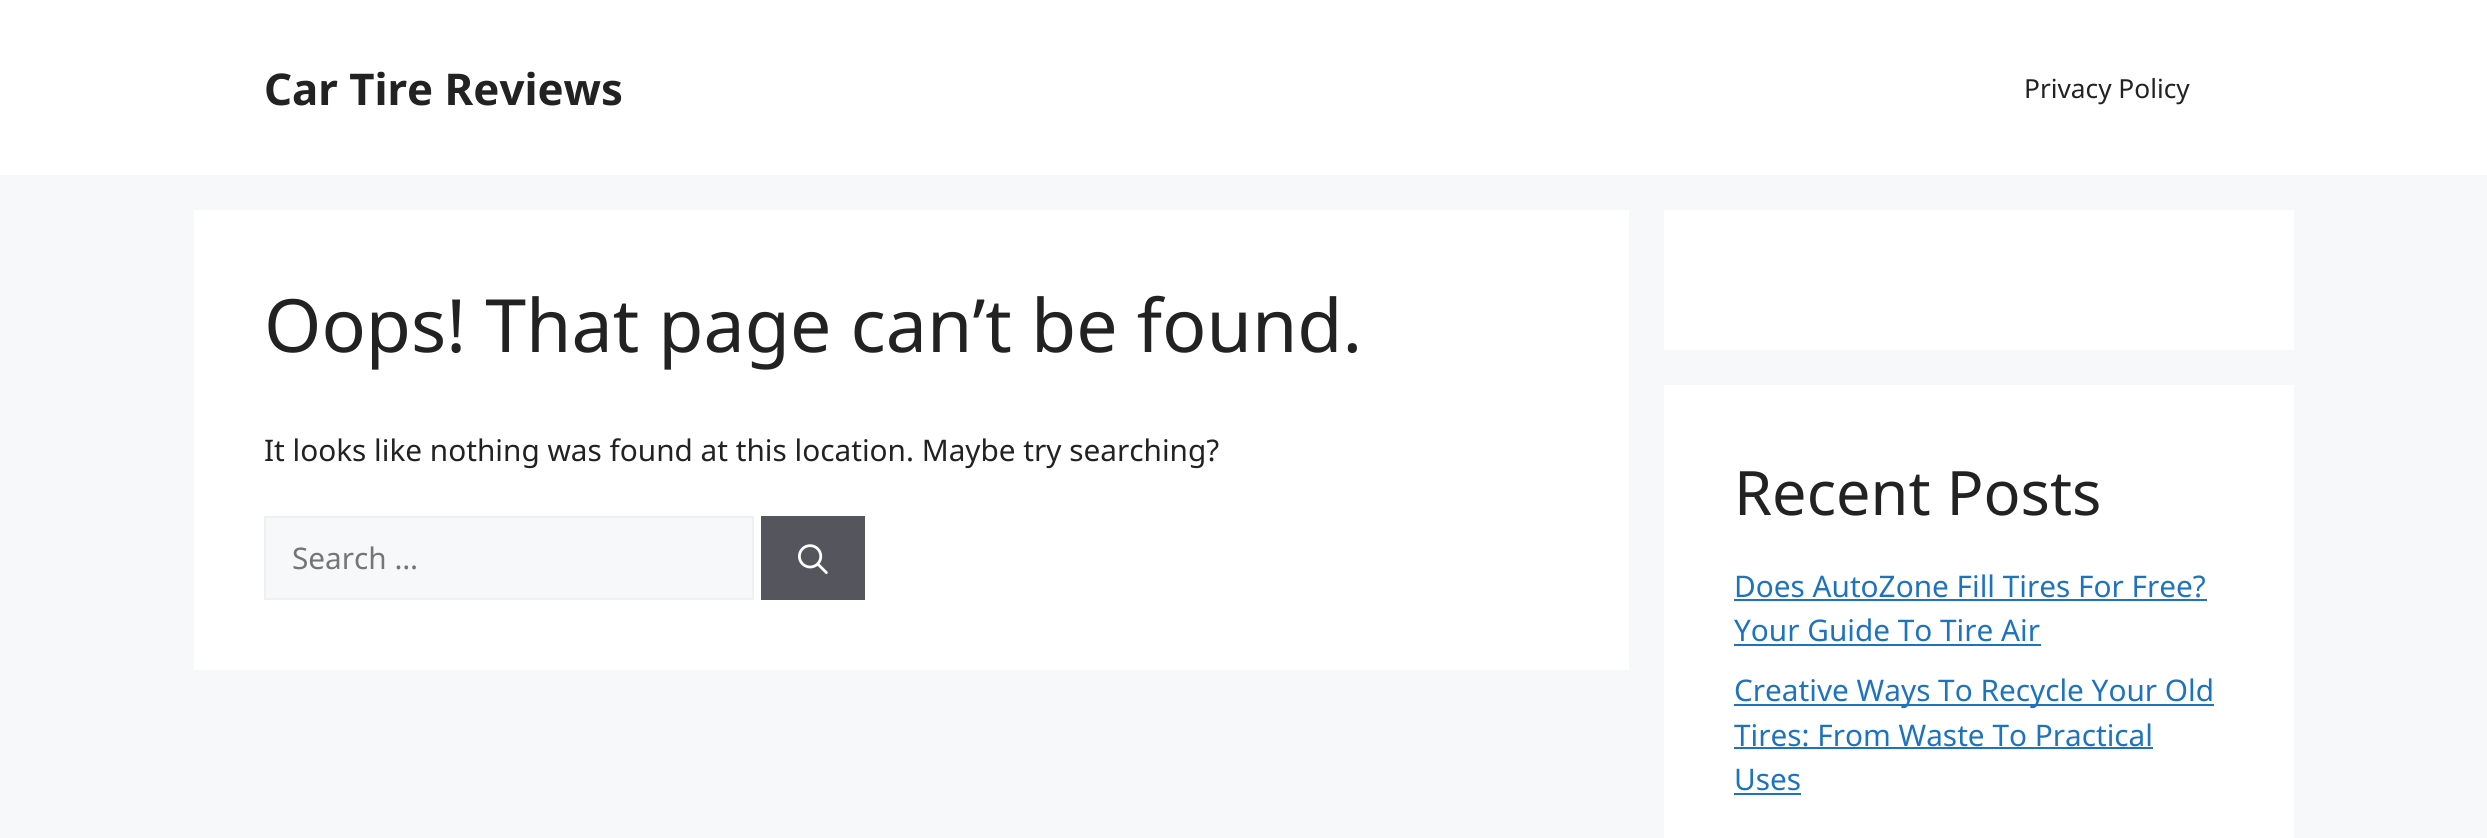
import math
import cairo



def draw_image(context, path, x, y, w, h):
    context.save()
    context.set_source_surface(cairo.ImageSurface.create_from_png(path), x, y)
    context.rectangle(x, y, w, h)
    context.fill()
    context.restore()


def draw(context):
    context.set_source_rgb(247 / 255, 248 / 255, 249 / 255)
    context.paint()
    context.set_source_rgb(1, 1, 1)
    context.rectangle(0, 0, 2487, 175)
    context.fill()
    context.rectangle(194, 210, 1435, 460)
    context.fill()
    context.set_source_rgb(247 / 255, 248 / 255, 249 / 255)
    context.rectangle(265, 517, 488, 82)
    context.fill_preserve()
    context.set_source_rgb(240 / 255, 240 / 255, 240 / 255)
    context.stroke()
    context.set_source_rgb(85 / 255, 85 / 255, 94 / 255)
    context.rectangle(761, 516, 104, 84)
    context.fill()
    draw_image(context, "images/1.png", 798, 544, 30, 30)
    context.set_source_rgb(1, 1, 1)
    context.rectangle(1664, 210, 630, 140)
    context.fill()
    context.rectangle(1664, 385, 630, 453)
    context.fill()
    context.set_source_rgb(30 / 255, 115 / 255, 190 / 255)
    context.rectangle(1734, 599, 473, 2)
    context.fill()
    context.rectangle(1734, 644, 307, 2)
    context.fill()
    context.rectangle(1734, 704, 480, 2)
    context.fill()
    context.rectangle(1734, 747, 419, 2)
    context.fill()
    context.rectangle(1734, 793, 67, 2)
    context.fill()
    context.select_font_face("Noto Sans", cairo.FontSlant.NORMAL, cairo.FontWeight.BOLD)
    context.set_font_size(43.75)
    context.set_source_rgb(34 / 255, 34 / 255, 34 / 255)
    context.move_to(264, 105)
    context.show_text("Car Tire Reviews")
    context.select_font_face("Noto Sans")
    context.set_font_size(26.25)
    context.move_to(2024, 98)
    context.show_text("Privacy Policy")
    context.set_font_size(73.5)
    context.move_to(264, 352)
    context.show_text("Oops! That page can’t be found.")
    context.set_font_size(29.75)
    context.move_to(264, 461)
    context.show_text("It looks like nothing was found at this location. Maybe try searching?")
    context.set_source_rgb(117 / 255, 117 / 255, 117 / 255)
    context.move_to(292, 569)
    context.show_text("Search …")
    context.set_font_size(61.25)
    context.set_source_rgb(34 / 255, 34 / 255, 34 / 255)
    context.move_to(1734, 515)
    context.show_text("Recent Posts")
    context.set_font_size(29.75)
    context.set_source_rgb(30 / 255, 115 / 255, 190 / 255)
    context.move_to(1734, 597)
    context.show_text("Does AutoZone Fill Tires For Free?")
    context.move_to(1734, 641)
    context.show_text("Your Guide To Tire Air")
    context.move_to(1734, 701)
    context.show_text("Creative Ways To Recycle Your Old")
    context.move_to(1734, 746)
    context.show_text("Tires: From Waste To Practical")
    context.move_to(1734, 790)
    context.show_text("Uses")


surface = cairo.ImageSurface(cairo.Format.RGB24, 2487, 838)
context = cairo.Context(surface)
options = cairo.FontOptions()
options.set_hint_metrics(cairo.HintMetrics.OFF)
options.set_hint_style(cairo.HintStyle.NONE)
context.set_font_options(options)
context.set_miter_limit(4)
draw(context)
surface.write_to_png("out.png")
